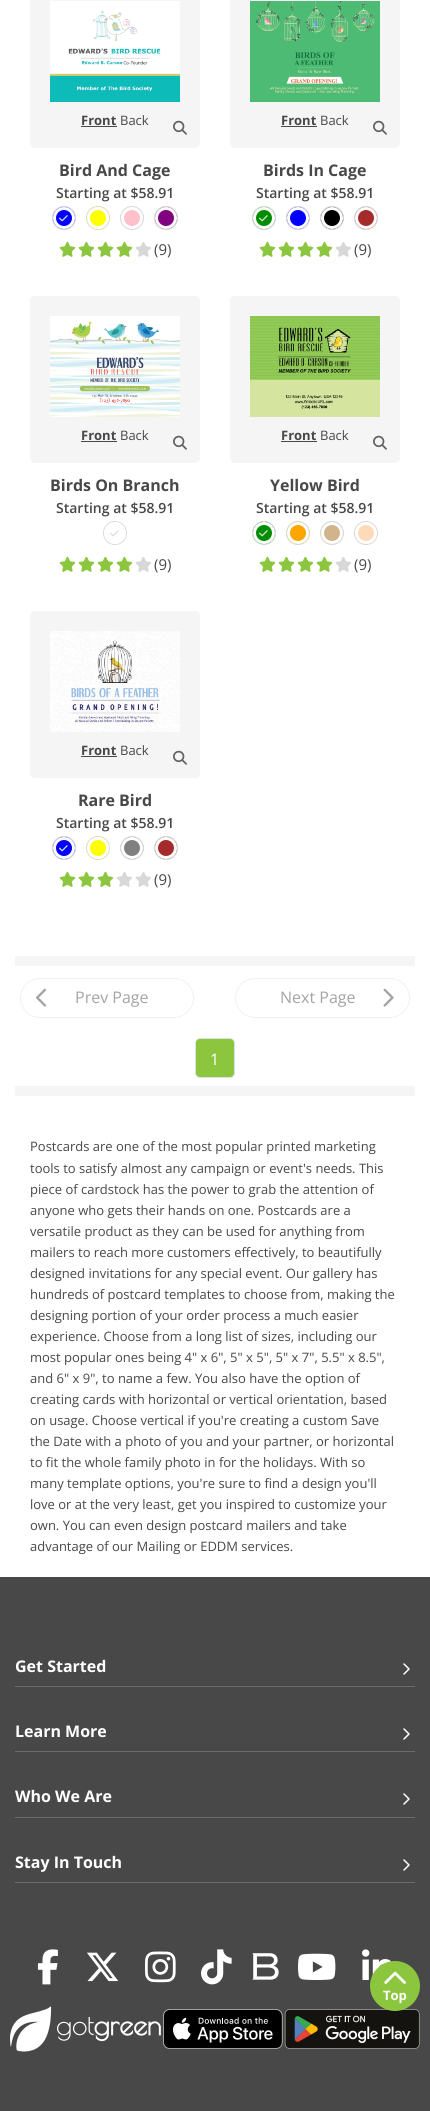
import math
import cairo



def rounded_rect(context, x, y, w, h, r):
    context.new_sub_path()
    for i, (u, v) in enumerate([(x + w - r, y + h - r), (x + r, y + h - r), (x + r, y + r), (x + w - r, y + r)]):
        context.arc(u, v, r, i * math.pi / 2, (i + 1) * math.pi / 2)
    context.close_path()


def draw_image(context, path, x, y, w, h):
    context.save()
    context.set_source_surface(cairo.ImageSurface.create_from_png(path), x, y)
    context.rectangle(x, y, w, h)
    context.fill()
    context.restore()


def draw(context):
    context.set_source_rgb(1, 1, 1)
    context.paint()
    context.set_source_rgb(245 / 255, 245 / 255, 245 / 255)
    rounded_rect(context, 30, -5, 170, 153, 5)
    context.fill()
    draw_image(context, "images/1.png", 50, 1, 130, 101)
    context.set_source_rgb(72 / 255, 72 / 255, 72 / 255)
    context.rectangle(81, 126, 36, 1)
    context.fill()
    draw_image(context, "images/2.png", 173, 120, 14, 15)
    context.set_source_rgb(0, 0, 1)
    context.arc(64, 218, 11.5, 0, 2 * math.pi)
    context.fill_preserve()
    context.set_source_rgb(216 / 255, 216 / 255, 216 / 255)
    context.set_line_width(1)
    context.stroke()
    draw_image(context, "images/3.png", 59, 215, 9, 7)
    context.arc(64, 218, 9.5, 0, 2 * math.pi)
    context.set_source_rgb(1, 1, 1)
    context.set_line_width(3)
    context.stroke()
    context.set_source_rgb(1, 1, 0)
    context.arc(98, 218, 11.5, 0, 2 * math.pi)
    context.fill_preserve()
    context.set_source_rgb(216 / 255, 216 / 255, 216 / 255)
    context.set_line_width(1)
    context.stroke()
    context.arc(98, 218, 9.5, 0, 2 * math.pi)
    context.set_source_rgb(1, 1, 1)
    context.set_line_width(3)
    context.stroke()
    context.set_source_rgb(1, 192 / 255, 203 / 255)
    context.arc(132, 218, 11.5, 0, 2 * math.pi)
    context.fill_preserve()
    context.set_source_rgb(216 / 255, 216 / 255, 216 / 255)
    context.set_line_width(1)
    context.stroke()
    context.arc(132, 218, 9.5, 0, 2 * math.pi)
    context.set_source_rgb(1, 1, 1)
    context.set_line_width(3)
    context.stroke()
    context.set_source_rgb(128 / 255, 0, 128 / 255)
    context.arc(166, 218, 11.5, 0, 2 * math.pi)
    context.fill_preserve()
    context.set_source_rgb(216 / 255, 216 / 255, 216 / 255)
    context.set_line_width(1)
    context.stroke()
    context.arc(166, 218, 9.5, 0, 2 * math.pi)
    context.set_source_rgb(1, 1, 1)
    context.set_line_width(3)
    context.stroke()
    draw_image(context, "images/4.png", 59, 241, 17, 16)
    draw_image(context, "images/4.png", 78, 241, 17, 16)
    draw_image(context, "images/4.png", 97, 241, 17, 16)
    draw_image(context, "images/4.png", 116, 241, 17, 16)
    draw_image(context, "images/5.png", 135, 242, 16, 15)
    context.set_source_rgb(245 / 255, 245 / 255, 245 / 255)
    rounded_rect(context, 230, -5, 170, 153, 5)
    context.fill()
    draw_image(context, "images/6.png", 250, 1, 130, 101)
    context.set_source_rgb(72 / 255, 72 / 255, 72 / 255)
    context.rectangle(281, 126, 36, 1)
    context.fill()
    draw_image(context, "images/2.png", 373, 120, 14, 15)
    context.set_source_rgb(0, 142 / 255, 0)
    context.arc(264, 218, 11.5, 0, 2 * math.pi)
    context.fill_preserve()
    context.set_source_rgb(216 / 255, 216 / 255, 216 / 255)
    context.set_line_width(1)
    context.stroke()
    draw_image(context, "images/7.png", 259, 215, 9, 7)
    context.arc(264, 218, 9.5, 0, 2 * math.pi)
    context.set_source_rgb(1, 1, 1)
    context.set_line_width(3)
    context.stroke()
    context.set_source_rgb(0, 0, 1)
    context.arc(298, 218, 11.5, 0, 2 * math.pi)
    context.fill_preserve()
    context.set_source_rgb(216 / 255, 216 / 255, 216 / 255)
    context.set_line_width(1)
    context.stroke()
    context.arc(298, 218, 9.5, 0, 2 * math.pi)
    context.set_source_rgb(1, 1, 1)
    context.set_line_width(3)
    context.stroke()
    context.set_source_rgb(0, 0, 0)
    context.arc(332, 218, 11.5, 0, 2 * math.pi)
    context.fill_preserve()
    context.set_source_rgb(216 / 255, 216 / 255, 216 / 255)
    context.set_line_width(1)
    context.stroke()
    context.arc(332, 218, 9.5, 0, 2 * math.pi)
    context.set_source_rgb(1, 1, 1)
    context.set_line_width(3)
    context.stroke()
    context.set_source_rgb(165 / 255, 42 / 255, 42 / 255)
    context.arc(366, 218, 11.5, 0, 2 * math.pi)
    context.fill_preserve()
    context.set_source_rgb(216 / 255, 216 / 255, 216 / 255)
    context.set_line_width(1)
    context.stroke()
    context.arc(366, 218, 9.5, 0, 2 * math.pi)
    context.set_source_rgb(1, 1, 1)
    context.set_line_width(3)
    context.stroke()
    draw_image(context, "images/4.png", 259, 241, 17, 16)
    draw_image(context, "images/4.png", 278, 241, 17, 16)
    draw_image(context, "images/4.png", 297, 241, 17, 16)
    draw_image(context, "images/4.png", 316, 241, 17, 16)
    draw_image(context, "images/5.png", 335, 242, 16, 15)
    context.set_source_rgb(245 / 255, 245 / 255, 245 / 255)
    rounded_rect(context, 30, 296, 170, 167, 5)
    context.fill()
    draw_image(context, "images/8.png", 50, 316, 130, 101)
    context.set_source_rgb(72 / 255, 72 / 255, 72 / 255)
    context.rectangle(81, 441, 36, 1)
    context.fill()
    draw_image(context, "images/2.png", 173, 435, 14, 15)
    context.arc(115, 533, 11.5, 0, 2 * math.pi)
    context.set_source_rgb(216 / 255, 216 / 255, 216 / 255)
    context.set_line_width(1)
    context.stroke()
    draw_image(context, "images/9.png", 110, 530, 9, 7)
    context.arc(115, 533, 9.5, 0, 2 * math.pi)
    context.set_source_rgb(1, 1, 1)
    context.set_line_width(3)
    context.stroke()
    draw_image(context, "images/4.png", 59, 556, 17, 16)
    draw_image(context, "images/4.png", 78, 556, 17, 16)
    draw_image(context, "images/4.png", 97, 556, 17, 16)
    draw_image(context, "images/4.png", 116, 556, 17, 16)
    draw_image(context, "images/5.png", 135, 557, 16, 15)
    context.set_source_rgb(245 / 255, 245 / 255, 245 / 255)
    rounded_rect(context, 230, 296, 170, 167, 5)
    context.fill()
    draw_image(context, "images/10.png", 250, 316, 130, 101)
    context.set_source_rgb(72 / 255, 72 / 255, 72 / 255)
    context.rectangle(281, 441, 36, 1)
    context.fill()
    draw_image(context, "images/2.png", 373, 435, 14, 15)
    context.set_source_rgb(0, 142 / 255, 0)
    context.arc(264, 533, 11.5, 0, 2 * math.pi)
    context.fill_preserve()
    context.set_source_rgb(216 / 255, 216 / 255, 216 / 255)
    context.set_line_width(1)
    context.stroke()
    draw_image(context, "images/7.png", 259, 530, 9, 7)
    context.arc(264, 533, 9.5, 0, 2 * math.pi)
    context.set_source_rgb(1, 1, 1)
    context.set_line_width(3)
    context.stroke()
    context.set_source_rgb(1, 165 / 255, 0)
    context.arc(298, 533, 11.5, 0, 2 * math.pi)
    context.fill_preserve()
    context.set_source_rgb(216 / 255, 216 / 255, 216 / 255)
    context.set_line_width(1)
    context.stroke()
    context.arc(298, 533, 9.5, 0, 2 * math.pi)
    context.set_source_rgb(1, 1, 1)
    context.set_line_width(3)
    context.stroke()
    context.set_source_rgb(210 / 255, 180 / 255, 140 / 255)
    context.arc(332, 533, 11.5, 0, 2 * math.pi)
    context.fill_preserve()
    context.set_source_rgb(216 / 255, 216 / 255, 216 / 255)
    context.set_line_width(1)
    context.stroke()
    context.arc(332, 533, 9.5, 0, 2 * math.pi)
    context.set_source_rgb(1, 1, 1)
    context.set_line_width(3)
    context.stroke()
    context.set_source_rgb(1, 218 / 255, 185 / 255)
    context.arc(366, 533, 11.5, 0, 2 * math.pi)
    context.fill_preserve()
    context.set_source_rgb(216 / 255, 216 / 255, 216 / 255)
    context.set_line_width(1)
    context.stroke()
    context.arc(366, 533, 9.5, 0, 2 * math.pi)
    context.set_source_rgb(1, 1, 1)
    context.set_line_width(3)
    context.stroke()
    draw_image(context, "images/4.png", 259, 556, 17, 16)
    draw_image(context, "images/4.png", 278, 556, 17, 16)
    draw_image(context, "images/4.png", 297, 556, 17, 16)
    draw_image(context, "images/4.png", 316, 556, 17, 16)
    draw_image(context, "images/5.png", 335, 557, 16, 15)
    context.set_source_rgb(245 / 255, 245 / 255, 245 / 255)
    rounded_rect(context, 30, 611, 170, 167, 5)
    context.fill()
    draw_image(context, "images/11.png", 50, 631, 130, 101)
    context.set_source_rgb(72 / 255, 72 / 255, 72 / 255)
    context.rectangle(81, 756, 36, 1)
    context.fill()
    draw_image(context, "images/2.png", 173, 750, 14, 15)
    context.set_source_rgb(0, 0, 1)
    context.arc(64, 848, 11.5, 0, 2 * math.pi)
    context.fill_preserve()
    context.set_source_rgb(216 / 255, 216 / 255, 216 / 255)
    context.set_line_width(1)
    context.stroke()
    draw_image(context, "images/3.png", 59, 845, 9, 7)
    context.arc(64, 848, 9.5, 0, 2 * math.pi)
    context.set_source_rgb(1, 1, 1)
    context.set_line_width(3)
    context.stroke()
    context.set_source_rgb(1, 1, 0)
    context.arc(98, 848, 11.5, 0, 2 * math.pi)
    context.fill_preserve()
    context.set_source_rgb(216 / 255, 216 / 255, 216 / 255)
    context.set_line_width(1)
    context.stroke()
    context.arc(98, 848, 9.5, 0, 2 * math.pi)
    context.set_source_rgb(1, 1, 1)
    context.set_line_width(3)
    context.stroke()
    context.set_source_rgb(128 / 255, 128 / 255, 128 / 255)
    context.arc(132, 848, 11.5, 0, 2 * math.pi)
    context.fill_preserve()
    context.set_source_rgb(216 / 255, 216 / 255, 216 / 255)
    context.set_line_width(1)
    context.stroke()
    context.arc(132, 848, 9.5, 0, 2 * math.pi)
    context.set_source_rgb(1, 1, 1)
    context.set_line_width(3)
    context.stroke()
    context.set_source_rgb(165 / 255, 42 / 255, 42 / 255)
    context.arc(166, 848, 11.5, 0, 2 * math.pi)
    context.fill_preserve()
    context.set_source_rgb(216 / 255, 216 / 255, 216 / 255)
    context.set_line_width(1)
    context.stroke()
    context.arc(166, 848, 9.5, 0, 2 * math.pi)
    context.set_source_rgb(1, 1, 1)
    context.set_line_width(3)
    context.stroke()
    draw_image(context, "images/4.png", 59, 871, 17, 16)
    draw_image(context, "images/4.png", 78, 871, 17, 16)
    draw_image(context, "images/4.png", 97, 871, 17, 16)
    draw_image(context, "images/5.png", 116, 872, 16, 15)
    draw_image(context, "images/5.png", 135, 872, 16, 15)
    context.set_source_rgb(245 / 255, 245 / 255, 245 / 255)
    context.rectangle(15, 956, 400, 10)
    context.fill()
    context.rectangle(15, 1086, 400, 10)
    context.fill()
    rounded_rect(context, 20.5, 978.5, 173, 39, 19.5)
    context.set_source_rgb(239 / 255, 241 / 255, 243 / 255)
    context.set_line_width(1)
    context.stroke()
    draw_image(context, "images/12.png", 36, 988, 11, 19)
    rounded_rect(context, 235.5, 978.5, 174, 39, 19.5)
    context.stroke()
    draw_image(context, "images/13.png", 383, 988, 11, 19)
    context.set_source_rgb(140 / 255, 198 / 255, 63 / 255)
    rounded_rect(context, 195.5, 1038.5, 39, 39, 4.5)
    context.fill_preserve()
    context.set_source_rgb(222 / 255, 226 / 255, 230 / 255)
    context.stroke()
    context.set_source_rgb(72 / 255, 72 / 255, 72 / 255)
    context.rectangle(0, 1577, 430, 534)
    context.fill()
    draw_image(context, "images/22.png", 362, 1949, 30, 31)
    draw_image(context, "images/25.png", 284, 2009, 136, 40)
    context.set_source_rgb(140 / 255, 198 / 255, 63 / 255)
    context.arc(395, 1986, 25, 0, 2 * math.pi)
    context.fill()
    draw_image(context, "images/14.png", 384, 1971, 22, 13)
    context.set_source_rgb(109 / 255, 107 / 255, 107 / 255)
    context.rectangle(15, 1686, 400, 1)
    context.fill()
    draw_image(context, "images/15.png", 403, 1663, 7, 12)
    context.rectangle(15, 1751, 400, 1)
    context.fill()
    draw_image(context, "images/15.png", 403, 1728, 7, 12)
    context.rectangle(15, 1817, 400, 1)
    context.fill()
    draw_image(context, "images/15.png", 403, 1793, 7, 12)
    context.rectangle(15, 1882, 400, 1)
    context.fill()
    draw_image(context, "images/15.png", 403, 1859, 7, 12)
    draw_image(context, "images/16.png", 37, 1949, 21, 36)
    draw_image(context, "images/17.png", 87, 1952, 32, 30)
    draw_image(context, "images/18.png", 145, 1951, 31, 32)
    draw_image(context, "images/19.png", 201, 1949, 31, 36)
    draw_image(context, "images/20.png", 252, 1953, 27, 27)
    draw_image(context, "images/21.png", 298, 1953, 38, 27)
    draw_image(context, "images/23.png", 10, 2006, 151, 46)
    draw_image(context, "images/24.png", 163, 2009, 120, 40)
    context.select_font_face("Open Sans", cairo.FontSlant.NORMAL, cairo.FontWeight.BOLD)
    context.set_font_size(13)
    context.set_source_rgb(72 / 255, 72 / 255, 72 / 255)
    context.move_to(81, 125)
    context.show_text("Front")
    context.select_font_face("Open Sans")
    context.move_to(120, 125)
    context.show_text("Back")
    context.select_font_face("Open Sans", cairo.FontSlant.NORMAL, cairo.FontWeight.BOLD)
    context.set_font_size(16)
    context.move_to(59, 176)
    context.show_text("Bird And Cage")
    context.select_font_face("Open Sans SemiBold")
    context.set_font_size(14)
    context.move_to(56, 198)
    context.show_text("Starting at $58.91")
    context.select_font_face("Open Sans")
    context.set_font_size(15)
    context.move_to(154, 255)
    context.show_text("(9)")
    context.select_font_face("Open Sans", cairo.FontSlant.NORMAL, cairo.FontWeight.BOLD)
    context.set_font_size(13)
    context.move_to(281, 125)
    context.show_text("Front")
    context.select_font_face("Open Sans")
    context.move_to(320, 125)
    context.show_text("Back")
    context.select_font_face("Open Sans", cairo.FontSlant.NORMAL, cairo.FontWeight.BOLD)
    context.set_font_size(16)
    context.move_to(263, 176)
    context.show_text("Birds In Cage")
    context.select_font_face("Open Sans SemiBold")
    context.set_font_size(14)
    context.move_to(256, 198)
    context.show_text("Starting at $58.91")
    context.select_font_face("Open Sans")
    context.set_font_size(15)
    context.move_to(354, 255)
    context.show_text("(9)")
    context.select_font_face("Open Sans", cairo.FontSlant.NORMAL, cairo.FontWeight.BOLD)
    context.set_font_size(13)
    context.move_to(81, 440)
    context.show_text("Front")
    context.select_font_face("Open Sans")
    context.move_to(120, 440)
    context.show_text("Back")
    context.select_font_face("Open Sans", cairo.FontSlant.NORMAL, cairo.FontWeight.BOLD)
    context.set_font_size(16)
    context.move_to(50, 491)
    context.show_text("Birds On Branch")
    context.select_font_face("Open Sans SemiBold")
    context.set_font_size(14)
    context.move_to(56, 513)
    context.show_text("Starting at $58.91")
    context.select_font_face("Open Sans")
    context.set_font_size(15)
    context.move_to(154, 570)
    context.show_text("(9)")
    context.select_font_face("Open Sans", cairo.FontSlant.NORMAL, cairo.FontWeight.BOLD)
    context.set_font_size(13)
    context.move_to(281, 440)
    context.show_text("Front")
    context.select_font_face("Open Sans")
    context.move_to(320, 440)
    context.show_text("Back")
    context.select_font_face("Open Sans", cairo.FontSlant.NORMAL, cairo.FontWeight.BOLD)
    context.set_font_size(16)
    context.move_to(270, 491)
    context.show_text("Yellow Bird")
    context.select_font_face("Open Sans SemiBold")
    context.set_font_size(14)
    context.move_to(256, 513)
    context.show_text("Starting at $58.91")
    context.select_font_face("Open Sans")
    context.set_font_size(15)
    context.move_to(354, 570)
    context.show_text("(9)")
    context.select_font_face("Open Sans", cairo.FontSlant.NORMAL, cairo.FontWeight.BOLD)
    context.set_font_size(13)
    context.move_to(81, 755)
    context.show_text("Front")
    context.select_font_face("Open Sans")
    context.move_to(120, 755)
    context.show_text("Back")
    context.select_font_face("Open Sans", cairo.FontSlant.NORMAL, cairo.FontWeight.BOLD)
    context.set_font_size(16)
    context.move_to(78, 806)
    context.show_text("Rare Bird")
    context.select_font_face("Open Sans SemiBold")
    context.set_font_size(14)
    context.move_to(56, 828)
    context.show_text("Starting at $58.91")
    context.select_font_face("Open Sans")
    context.set_font_size(15)
    context.move_to(154, 885)
    context.show_text("(9)")
    context.set_font_size(16)
    context.set_source_rgb(164 / 255, 164 / 255, 164 / 255)
    context.move_to(75, 1003)
    context.show_text("Prev Page")
    context.move_to(280, 1003)
    context.show_text("Next Page")
    context.set_source_rgb(1, 1, 1)
    context.move_to(210, 1065)
    context.show_text("1")
    context.set_font_size(13)
    context.set_source_rgb(72 / 255, 72 / 255, 72 / 255)
    context.move_to(30, 1151)
    context.show_text("Postcards are one of the most popular printed marketing")
    context.move_to(30, 1173)
    context.show_text("tools to satisfy almost any campaign or event's needs. This")
    context.move_to(30, 1194)
    context.show_text("piece of cardstock has the power to grab the attention of")
    context.move_to(30, 1215)
    context.show_text("anyone who gets their hands on one. Postcards are a")
    context.move_to(30, 1236)
    context.show_text("versatile product as they can be used for anything from")
    context.move_to(30, 1257)
    context.show_text("mailers to reach more customers effectively, to beautifully")
    context.move_to(30, 1278)
    context.show_text("designed invitations for any special event. Our gallery has")
    context.move_to(30, 1299)
    context.show_text("hundreds of postcard templates to choose from, making the")
    context.move_to(30, 1320)
    context.show_text("designing portion of your order process a much easier")
    context.move_to(30, 1341)
    context.show_text("experience. Choose from a long list of sizes, including our")
    context.move_to(30, 1362)
    context.show_text("most popular ones being 4\" x 6\", 5\" x 5\", 5\" x 7\", 5.5\" x 8.5\",")
    context.move_to(30, 1383)
    context.show_text("and 6\" x 9\", to name a few. You also have the option of")
    context.move_to(30, 1404)
    context.show_text("creating cards with horizontal or vertical orientation, based")
    context.move_to(30, 1425)
    context.show_text("on usage. Choose vertical if you're creating a custom Save")
    context.move_to(30, 1446)
    context.show_text("the Date with a photo of you and your partner, or horizontal")
    context.move_to(30, 1467)
    context.show_text("to fit the whole family photo in for the holidays. With so")
    context.move_to(30, 1488)
    context.show_text("many template options, you're sure to find a design you'll")
    context.move_to(30, 1509)
    context.show_text("love or at the very least, get you inspired to customize your")
    context.move_to(30, 1530)
    context.show_text("own. You can even design postcard mailers and take")
    context.move_to(30, 1551)
    context.show_text("advantage of our Mailing or EDDM services.")
    context.select_font_face("Open Sans", cairo.FontSlant.NORMAL, cairo.FontWeight.BOLD)
    context.set_source_rgb(1, 1, 1)
    context.move_to(383, 2000)
    context.show_text("Top")
    context.set_font_size(16)
    context.move_to(15, 1672)
    context.show_text("Get Started")
    context.move_to(15, 1737)
    context.show_text("Learn More")
    context.move_to(15, 1802)
    context.show_text("Who We Are")
    context.move_to(15, 1868)
    context.show_text("Stay In Touch")


surface = cairo.ImageSurface(cairo.Format.RGB24, 430, 2111)
context = cairo.Context(surface)
options = cairo.FontOptions()
options.set_hint_metrics(cairo.HintMetrics.OFF)
options.set_hint_style(cairo.HintStyle.NONE)
context.set_font_options(options)
context.set_miter_limit(4)
draw(context)
surface.write_to_png("out.png")
